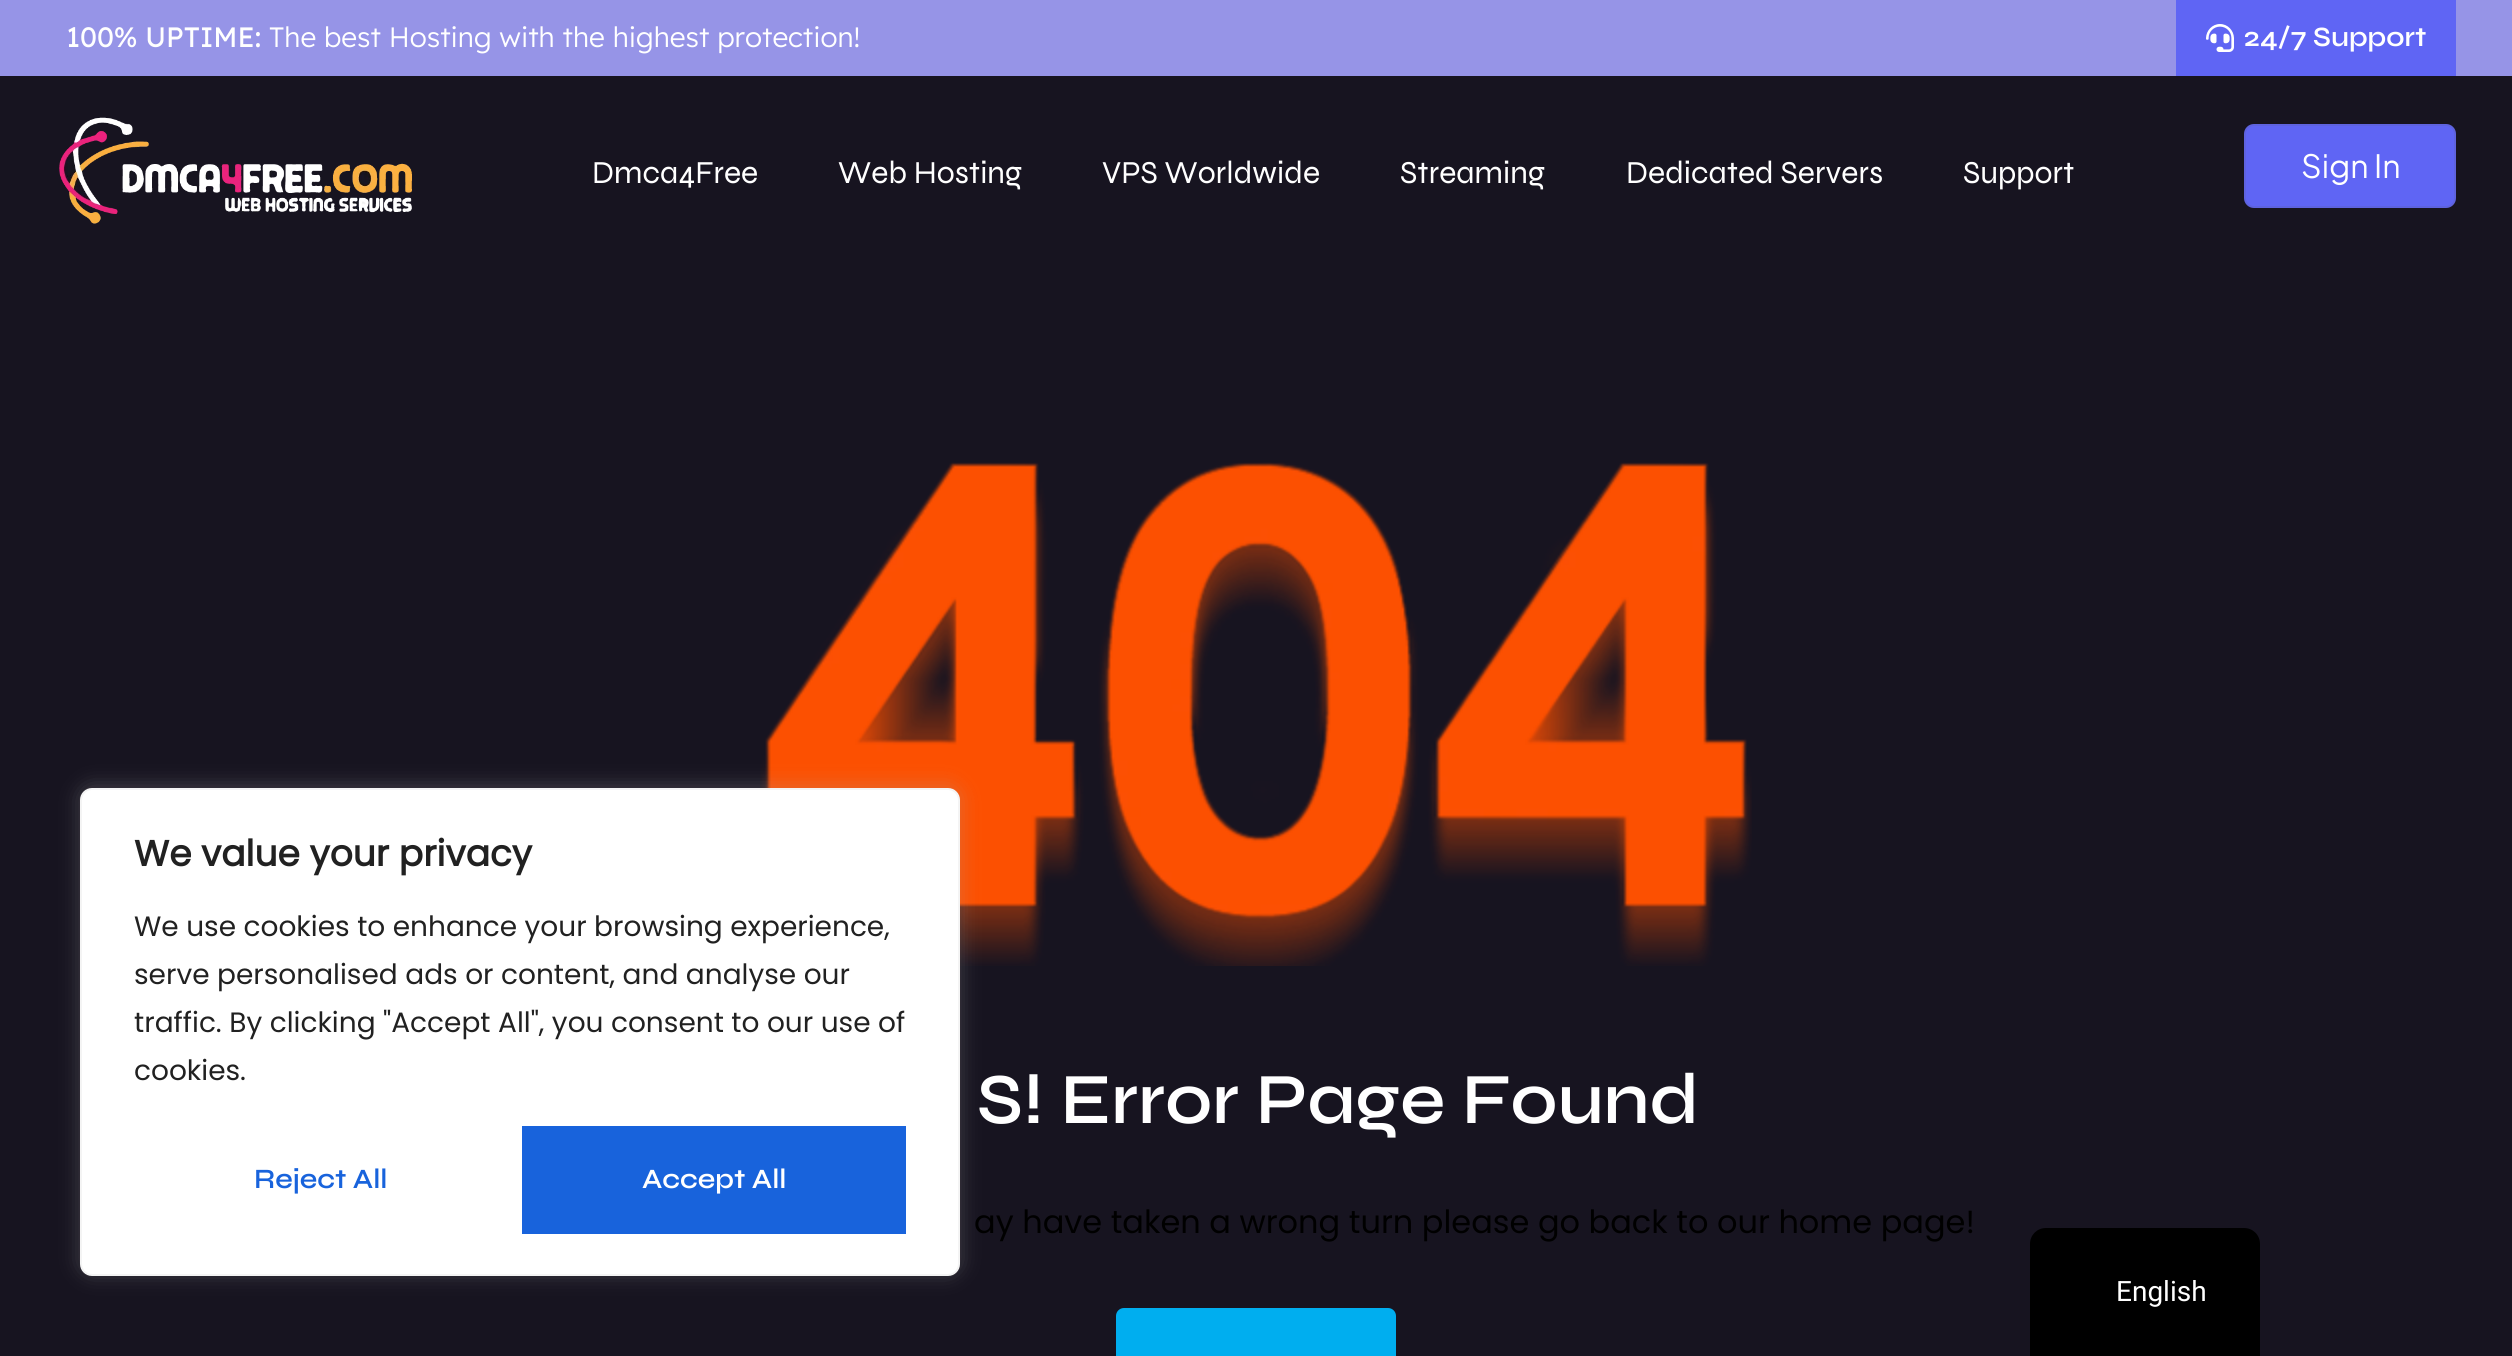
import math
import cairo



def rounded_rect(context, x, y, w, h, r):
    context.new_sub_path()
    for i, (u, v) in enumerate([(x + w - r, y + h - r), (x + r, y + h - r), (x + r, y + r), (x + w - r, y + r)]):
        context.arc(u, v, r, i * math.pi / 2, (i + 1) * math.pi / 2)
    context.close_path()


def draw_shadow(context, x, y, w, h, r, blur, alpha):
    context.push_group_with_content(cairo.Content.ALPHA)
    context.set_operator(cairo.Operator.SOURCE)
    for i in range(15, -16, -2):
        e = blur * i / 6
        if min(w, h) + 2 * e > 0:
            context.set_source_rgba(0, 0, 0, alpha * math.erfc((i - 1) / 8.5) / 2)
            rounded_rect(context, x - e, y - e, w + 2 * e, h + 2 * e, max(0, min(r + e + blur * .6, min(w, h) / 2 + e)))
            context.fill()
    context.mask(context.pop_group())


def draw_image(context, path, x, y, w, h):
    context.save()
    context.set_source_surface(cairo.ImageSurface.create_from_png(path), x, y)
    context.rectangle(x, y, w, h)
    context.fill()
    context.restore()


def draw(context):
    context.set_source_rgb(23 / 255, 20 / 255, 32 / 255)
    context.paint()
    context.set_source_rgb(150 / 255, 148 / 255, 231 / 255)
    context.rectangle(0, 0, 2512, 76)
    context.fill()
    context.set_source_rgb(95 / 255, 101 / 255, 244 / 255)
    context.rectangle(2176, 0, 280, 76)
    context.fill()
    draw_image(context, "images/1.png", 2206, 24, 28, 28)
    draw_image(context, "images/2.png", 59, 117, 353, 107)
    rounded_rect(context, 2244, 124, 212, 84, 10)
    context.fill()
    rounded_rect(context, 2245, 125, 210, 82, 9)
    context.set_source_rgba(85 / 255, 85 / 255, 85 / 255, 0.13)
    context.stroke()
    draw_image(context, "images/3.png", 760, 462, 992, 504)
    context.set_source_rgb(0, 174 / 255, 239 / 255)
    rounded_rect(context, 1116, 1308, 280, 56, 8)
    context.fill()
    context.set_source_rgb(172 / 255, 171 / 255, 171 / 255)
    draw_shadow(context, 80, 786, 880, 488, 12, 10, 0.3)
    context.set_source_rgb(1, 1, 1)
    rounded_rect(context, 81, 789, 878, 486, 11)
    context.fill_preserve()
    context.set_source_rgb(244 / 255, 244 / 255, 244 / 255)
    context.stroke()
    context.set_source_rgb(24 / 255, 99 / 255, 220 / 255)
    context.rectangle(522, 1126, 384, 108)
    context.fill()
    context.set_source_rgb(0, 0, 0)
    context.new_path()
    context.move_to(2046, 1228)
    context.line_to(2244, 1228)
    context.curve_to(2253, 1228, 2260, 1235, 2260, 1244)
    context.line_to(2260, 1356)
    context.line_to(2030, 1356)
    context.line_to(2030, 1244)
    context.curve_to(2030, 1235, 2037, 1228, 2046, 1228)
    context.close_path()
    context.fill()
    context.select_font_face("Lexend")
    context.set_font_size(28)
    context.set_source_rgb(1, 1, 1)
    context.move_to(66, 47)
    context.show_text("100% UPTIME:")
    context.select_font_face("Lexend Light")
    context.move_to(269, 47)
    context.show_text("The best Hosting with the highest protection!")
    context.select_font_face("Syne SemiBold")
    context.move_to(2244, 46)
    context.show_text("24/7 Support")
    context.select_font_face("Syne")
    context.set_font_size(32)
    context.move_to(592, 183)
    context.show_text("Dmca4Free")
    context.move_to(838, 183)
    context.show_text("Web Hosting")
    context.move_to(1102, 183)
    context.show_text("VPS Worldwide")
    context.move_to(1400, 183)
    context.show_text("Streaming")
    context.move_to(1626, 183)
    context.show_text("Dedicated Servers")
    context.move_to(1963, 183)
    context.show_text("Support")
    context.select_font_face("Plus Jakarta Sans")
    context.move_to(2301, 178)
    context.show_text("Sign In")
    context.select_font_face("Syne SemiBold")
    context.set_font_size(72)
    context.move_to(977, 1123)
    context.show_text("S! Error Page Found")
    context.select_font_face("Poppins")
    context.set_font_size(32)
    context.set_source_rgb(0, 0, 0)
    context.move_to(974, 1233)
    context.show_text("ay have taken a wrong turn please go back to our home page!")
    context.select_font_face("Poppins", cairo.FontSlant.NORMAL, cairo.FontWeight.BOLD)
    context.set_font_size(36)
    context.set_source_rgb(33 / 255, 33 / 255, 33 / 255)
    context.move_to(134, 866)
    context.show_text("We value your privacy")
    context.select_font_face("Poppins")
    context.set_font_size(28)
    context.move_to(134, 936)
    context.show_text("We use cookies to enhance your browsing experience,")
    context.move_to(134, 984)
    context.show_text("serve personalised ads or content, and analyse our")
    context.move_to(134, 1032)
    context.show_text("traffic. By clicking \"Accept All\", you consent to our use of")
    context.move_to(134, 1080)
    context.show_text("cookies.")
    context.select_font_face("Syne SemiBold")
    context.set_source_rgb(24 / 255, 99 / 255, 220 / 255)
    context.move_to(254, 1188)
    context.show_text("Reject All")
    context.set_source_rgb(1, 1, 1)
    context.move_to(642, 1188)
    context.show_text("Accept All")
    context.select_font_face("Roboto")
    context.move_to(2116, 1301)
    context.show_text("English")


surface = cairo.ImageSurface(cairo.Format.RGB24, 2512, 1356)
context = cairo.Context(surface)
options = cairo.FontOptions()
options.set_hint_metrics(cairo.HintMetrics.OFF)
options.set_hint_style(cairo.HintStyle.NONE)
context.set_font_options(options)
context.set_miter_limit(4)
draw(context)
surface.write_to_png("out.png")
